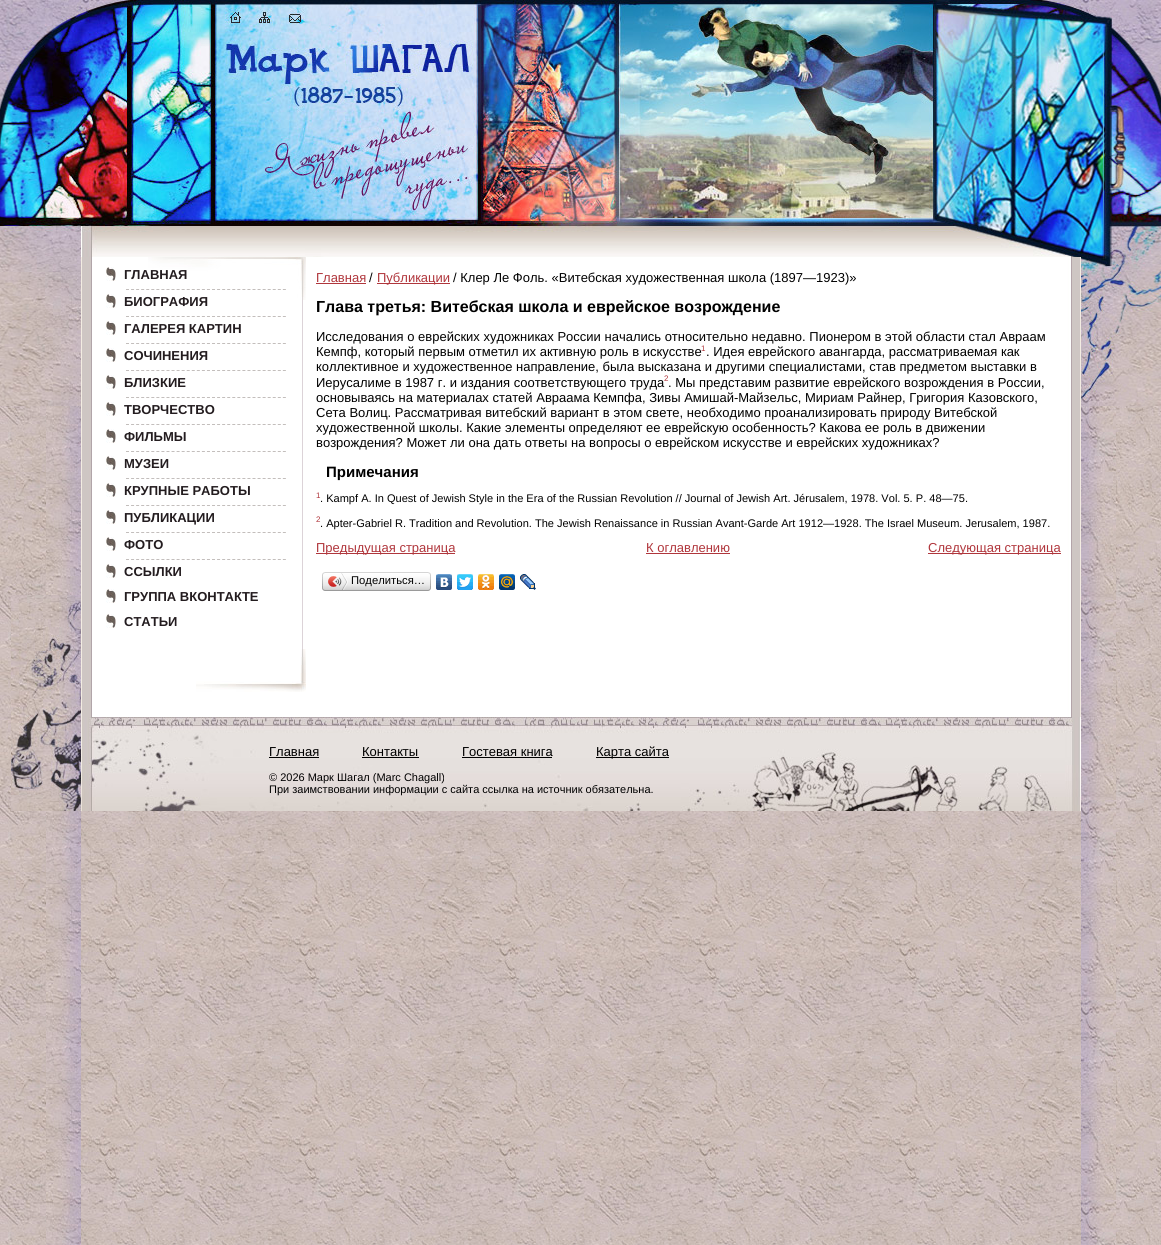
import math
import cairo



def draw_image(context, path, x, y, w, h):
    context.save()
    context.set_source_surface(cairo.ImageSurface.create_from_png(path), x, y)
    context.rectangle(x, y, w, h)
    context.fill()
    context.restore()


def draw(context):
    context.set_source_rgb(1, 1, 1)
    context.paint()
    draw_image(context, "images/1.png", 0, 406, 1161, 839)
    draw_image(context, "images/2.png", 46, 406, 35, 839)
    draw_image(context, "images/3.png", 0, 0, 81, 406)
    draw_image(context, "images/4.png", 81, 0, 1000, 257)
    draw_image(context, "images/5.png", 81, 257, 1000, 460)
    context.set_source_rgb(220 / 255, 211 / 255, 216 / 255)
    context.rectangle(302, 300, 1, 349)
    context.fill()
    draw_image(context, "images/6.png", 148, 257, 158, 43)
    draw_image(context, "images/7.png", 106, 267, 10, 14)
    context.new_path()
    context.move_to(126, 289.5)
    context.line_to(286, 289.5)
    context.set_source_rgb(195 / 255, 190 / 255, 188 / 255)
    context.set_line_width(1)
    context.set_dash([3, 2.06])
    context.stroke()
    draw_image(context, "images/7.png", 106, 294, 10, 14)
    context.new_path()
    context.move_to(126, 316.5)
    context.line_to(286, 316.5)
    context.stroke()
    draw_image(context, "images/7.png", 106, 321, 10, 14)
    context.new_path()
    context.move_to(126, 343.5)
    context.line_to(286, 343.5)
    context.stroke()
    draw_image(context, "images/7.png", 106, 348, 10, 14)
    context.new_path()
    context.move_to(126, 370.5)
    context.line_to(286, 370.5)
    context.stroke()
    draw_image(context, "images/7.png", 106, 375, 10, 14)
    context.new_path()
    context.move_to(126, 397.5)
    context.line_to(286, 397.5)
    context.stroke()
    draw_image(context, "images/7.png", 106, 402, 10, 14)
    context.new_path()
    context.move_to(126, 424.5)
    context.line_to(286, 424.5)
    context.stroke()
    draw_image(context, "images/7.png", 106, 429, 10, 14)
    context.new_path()
    context.move_to(126, 451.5)
    context.line_to(286, 451.5)
    context.stroke()
    draw_image(context, "images/7.png", 106, 456, 10, 14)
    context.new_path()
    context.move_to(126, 478.5)
    context.line_to(286, 478.5)
    context.stroke()
    draw_image(context, "images/7.png", 106, 483, 10, 14)
    context.new_path()
    context.move_to(126, 505.5)
    context.line_to(286, 505.5)
    context.stroke()
    draw_image(context, "images/7.png", 106, 510, 10, 14)
    context.new_path()
    context.move_to(126, 532.5)
    context.line_to(286, 532.5)
    context.stroke()
    draw_image(context, "images/7.png", 106, 537, 10, 14)
    context.new_path()
    context.move_to(126, 559.5)
    context.line_to(286, 559.5)
    context.stroke()
    draw_image(context, "images/7.png", 106, 564, 10, 14)
    draw_image(context, "images/7.png", 106, 589, 10, 14)
    draw_image(context, "images/7.png", 106, 614, 10, 14)
    draw_image(context, "images/8.png", 196, 649, 110, 43)
    context.set_source_rgb(176 / 255, 54 / 255, 60 / 255)
    context.rectangle(316, 283, 50, 1)
    context.fill()
    context.rectangle(377, 283, 73, 1)
    context.fill()
    context.rectangle(316, 553, 139, 1)
    context.fill()
    context.rectangle(646, 553, 84, 1)
    context.fill()
    context.rectangle(928, 553, 133, 1)
    context.fill()
    draw_image(context, "images/9.png", 325, 572, 103, 19)
    draw_image(context, "images/10.png", 322, 572, 3, 19)
    draw_image(context, "images/11.png", 328, 573, 20, 17)
    draw_image(context, "images/12.png", 428, 572, 3, 19)
    draw_image(context, "images/13.png", 436, 574, 16, 16)
    draw_image(context, "images/14.png", 457, 574, 16, 16)
    draw_image(context, "images/15.png", 478, 574, 16, 16)
    draw_image(context, "images/16.png", 499, 574, 16, 16)
    draw_image(context, "images/17.png", 520, 574, 16, 16)
    draw_image(context, "images/18.png", 81, 717, 1000, 94)
    draw_image(context, "images/19.png", 11, 595, 70, 216)
    context.set_source_rgb(0, 0, 0)
    context.rectangle(269, 757, 50, 1)
    context.fill()
    context.rectangle(362, 757, 57, 1)
    context.fill()
    context.rectangle(462, 757, 90, 1)
    context.fill()
    context.rectangle(596, 757, 73, 1)
    context.fill()
    draw_image(context, "images/20.png", 1081, 406, 35, 839)
    draw_image(context, "images/21.png", 1081, 0, 80, 406)
    context.select_font_face("Liberation Sans", cairo.FontSlant.NORMAL, cairo.FontWeight.BOLD)
    context.set_font_size(13)
    context.set_source_rgb(35 / 255, 28 / 255, 31 / 255)
    context.move_to(124, 279)
    context.show_text("ГЛАВНАЯ")
    context.move_to(124, 306)
    context.show_text("БИОГРАФИЯ")
    context.move_to(124, 333)
    context.show_text("ГАЛЕРЕЯ КАРТИН")
    context.move_to(124, 360)
    context.show_text("СОЧИНЕНИЯ")
    context.move_to(124, 387)
    context.show_text("БЛИЗКИЕ")
    context.move_to(124, 414)
    context.show_text("ТВОРЧЕСТВО")
    context.move_to(124, 441)
    context.show_text("ФИЛЬМЫ")
    context.move_to(124, 468)
    context.show_text("МУЗЕИ")
    context.move_to(124, 495)
    context.show_text("КРУПНЫЕ РАБОТЫ")
    context.move_to(124, 522)
    context.show_text("ПУБЛИКАЦИИ")
    context.move_to(124, 549)
    context.show_text("ФОТО")
    context.move_to(124, 576)
    context.show_text("ССЫЛКИ")
    context.move_to(124, 601)
    context.show_text("ГРУППА ВКОНТАКТЕ")
    context.move_to(124, 626)
    context.show_text("СТАТЬИ")
    context.select_font_face("Liberation Sans")
    context.set_source_rgb(176 / 255, 54 / 255, 60 / 255)
    context.move_to(316, 282)
    context.show_text("Главная")
    context.set_source_rgb(0, 0, 0)
    context.move_to(369, 282)
    context.show_text("/")
    context.set_source_rgb(176 / 255, 54 / 255, 60 / 255)
    context.move_to(377, 282)
    context.show_text("Публикации")
    context.set_source_rgb(0, 0, 0)
    context.move_to(453, 282)
    context.show_text("/ Клер Ле Фоль. «Витебская художественная школа (1897—1923)»")
    context.select_font_face("Liberation Sans", cairo.FontSlant.NORMAL, cairo.FontWeight.BOLD)
    context.set_font_size(16)
    context.move_to(316, 312)
    context.show_text("Глава третья: Витебская школа и еврейское возрождение")
    context.select_font_face("Liberation Sans")
    context.set_font_size(13)
    context.move_to(316, 341)
    context.show_text("Исследования о еврейских художниках России начались относительно недавно. Пионером в этой области стал Авраам")
    context.move_to(316, 356)
    context.show_text("Кемпф, который первым отметил их активную роль в искусстве")
    context.set_font_size(8)
    context.set_source_rgb(176 / 255, 54 / 255, 60 / 255)
    context.move_to(701, 351)
    context.show_text("1")
    context.set_font_size(13)
    context.set_source_rgb(0, 0, 0)
    context.move_to(706, 356)
    context.show_text(". Идея еврейского авангарда, рассматриваемая как")
    context.move_to(316, 371)
    context.show_text("коллективное и художественное направление, была высказана и другими специалистами, став предметом выставки в")
    context.move_to(316, 387)
    context.show_text("Иерусалиме в 1987 г. и издания соответствующего труда")
    context.set_font_size(8)
    context.set_source_rgb(176 / 255, 54 / 255, 60 / 255)
    context.move_to(664, 381)
    context.show_text("2")
    context.set_font_size(13)
    context.set_source_rgb(0, 0, 0)
    context.move_to(668, 387)
    context.show_text(". Мы представим развитие еврейского возрождения в России,")
    context.move_to(316, 402)
    context.show_text("основываясь на материалах статей Авраама Кемпфа, Зивы Амишай-Майзельс, Мириам Райнер, Григория Казовского,")
    context.move_to(316, 417)
    context.show_text("Сета Волиц. Рассматривая витебский вариант в этом свете, необходимо проанализировать природу Витебской")
    context.move_to(316, 432)
    context.show_text("художественной школы. Какие элементы определяют ее еврейскую особенность? Какова ее роль в движении")
    context.move_to(316, 447)
    context.show_text("возрождения? Может ли она дать ответы на вопросы о еврейском искусстве и еврейских художниках?")
    context.select_font_face("Liberation Sans", cairo.FontSlant.NORMAL, cairo.FontWeight.BOLD)
    context.set_font_size(15)
    context.move_to(326, 477)
    context.show_text("Примечания")
    context.select_font_face("Liberation Sans")
    context.set_font_size(8)
    context.set_source_rgb(176 / 255, 54 / 255, 60 / 255)
    context.move_to(316, 498)
    context.show_text("1")
    context.set_font_size(11.05)
    context.set_source_rgb(0, 0, 0)
    context.move_to(320, 502)
    context.show_text(". Kampf A. In Quest of Jewish Style in the Era of the Russian Revolution // Journal of Jewish Art. Jérusalem, 1978. Vol. 5. P. 48—75.")
    context.set_font_size(8)
    context.set_source_rgb(176 / 255, 54 / 255, 60 / 255)
    context.move_to(316, 522)
    context.show_text("2")
    context.set_font_size(11.05)
    context.set_source_rgb(0, 0, 0)
    context.move_to(320, 527)
    context.show_text(". Apter-Gabriel R. Tradition and Revolution. The Jewish Renaissance in Russian Avant-Garde Art 1912—1928. The Israel Museum. Jerusalem, 1987.")
    context.set_font_size(13)
    context.set_source_rgb(176 / 255, 54 / 255, 60 / 255)
    context.move_to(316, 552)
    context.show_text("Предыдущая страница")
    context.move_to(646, 552)
    context.show_text("К оглавлению")
    context.move_to(928, 552)
    context.show_text("Следующая страница")
    context.set_font_size(11.25)
    context.set_source_rgb(0, 0, 0)
    context.move_to(351, 584)
    context.show_text("Поделиться…")
    context.set_font_size(13)
    context.move_to(269, 756)
    context.show_text("Главная")
    context.move_to(362, 756)
    context.show_text("Контакты")
    context.move_to(462, 756)
    context.show_text("Гостевая книга")
    context.move_to(596, 756)
    context.show_text("Карта сайта")
    context.set_font_size(11)
    context.move_to(269, 781)
    context.show_text("© 2026 Марк Шагал (Marc Chagall)")
    context.move_to(269, 793)
    context.show_text("При заимствовании информации с сайта ссылка на источник обязательна.")


surface = cairo.ImageSurface(cairo.Format.RGB24, 1161, 1245)
context = cairo.Context(surface)
options = cairo.FontOptions()
options.set_hint_metrics(cairo.HintMetrics.OFF)
options.set_hint_style(cairo.HintStyle.NONE)
context.set_font_options(options)
context.set_miter_limit(4)
draw(context)
surface.write_to_png("out.png")
